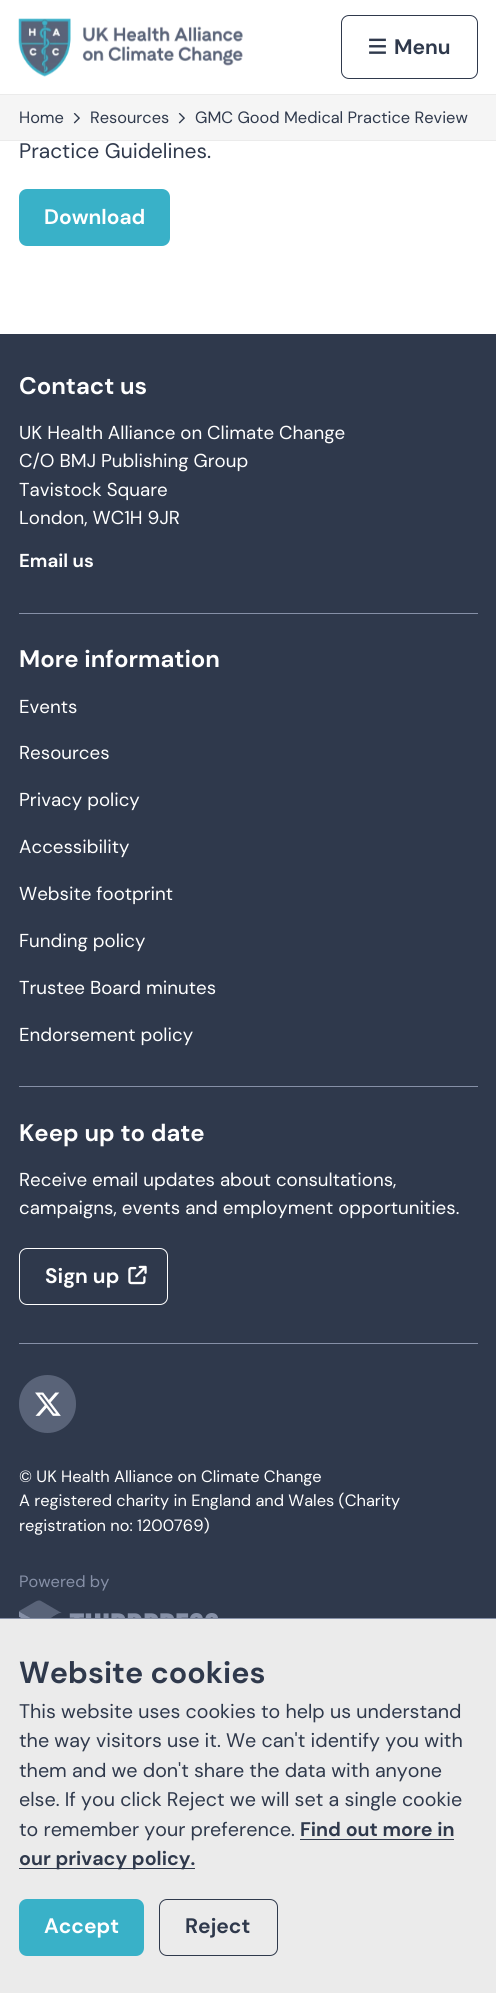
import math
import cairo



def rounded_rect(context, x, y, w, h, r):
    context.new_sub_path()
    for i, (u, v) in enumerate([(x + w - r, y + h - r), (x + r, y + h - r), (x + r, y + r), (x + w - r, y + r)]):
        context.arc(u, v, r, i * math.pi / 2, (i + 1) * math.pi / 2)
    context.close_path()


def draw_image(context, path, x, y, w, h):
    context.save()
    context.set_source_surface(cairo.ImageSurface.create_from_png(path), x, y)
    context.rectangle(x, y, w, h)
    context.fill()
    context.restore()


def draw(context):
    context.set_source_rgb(1, 1, 1)
    context.paint()
    context.set_source_rgb(235 / 255, 235 / 255, 235 / 255)
    context.rectangle(0, 94, 496, 1)
    context.fill()
    draw_image(context, "images/1.png", 18, 18, 225, 59)
    rounded_rect(context, 341.5, 15.5, 136, 63, 7.5)
    context.set_source_rgb(47 / 255, 57 / 255, 76 / 255)
    context.set_line_width(1)
    context.stroke()
    draw_image(context, "images/2.png", 369, 38, 17, 16)
    context.set_source_rgb(245 / 255, 245 / 255, 245 / 255)
    context.rectangle(0, 95, 496, 45)
    context.fill()
    context.set_source_rgb(235 / 255, 235 / 255, 235 / 255)
    context.rectangle(0, 140, 496, 1)
    context.fill()
    draw_image(context, "images/3.png", 73, 113, 7, 11)
    draw_image(context, "images/3.png", 178, 113, 7, 11)
    context.set_source_rgb(57 / 255, 177 / 255, 200 / 255)
    rounded_rect(context, 19, 189, 151, 57, 8)
    context.fill()
    context.set_source_rgb(47 / 255, 57 / 255, 76 / 255)
    context.rectangle(0, 334, 496, 1284)
    context.fill()
    context.set_source_rgb(134 / 255, 144 / 255, 167 / 255)
    context.rectangle(19, 613, 459, 1)
    context.fill()
    context.rectangle(19, 1086, 459, 1)
    context.fill()
    rounded_rect(context, 19.5, 1248.5, 148, 56, 7.5)
    context.set_source_rgb(1, 1, 1)
    context.stroke()
    draw_image(context, "images/4.png", 128, 1265, 19, 20)
    context.set_source_rgb(134 / 255, 144 / 255, 167 / 255)
    context.rectangle(19, 1343, 459, 1)
    context.fill()
    context.set_source_rgb(89 / 255, 99 / 255, 120 / 255)
    rounded_rect(context, 19, 1375, 57, 58, 28.5)
    context.fill()
    draw_image(context, "images/5.png", 35, 1392, 26, 24)
    draw_image(context, "images/6.png", 19, 1600, 199, 18)
    context.set_source_rgb(235 / 255, 235 / 255, 235 / 255)
    context.rectangle(0, 1619, 496, 374)
    context.fill()
    context.set_source_rgb(134 / 255, 144 / 255, 167 / 255)
    context.rectangle(0, 1618, 496, 1)
    context.fill()
    context.set_source_rgb(47 / 255, 57 / 255, 76 / 255)
    context.rectangle(300, 1839, 154, 1)
    context.fill()
    context.rectangle(19, 1868, 176, 1)
    context.fill()
    context.set_source_rgb(57 / 255, 177 / 255, 200 / 255)
    rounded_rect(context, 19, 1899, 125, 57, 8)
    context.fill()
    rounded_rect(context, 159.5, 1899.5, 118, 56, 7.5)
    context.set_source_rgb(47 / 255, 57 / 255, 76 / 255)
    context.stroke()
    context.select_font_face("DM Sans", cairo.FontSlant.NORMAL, cairo.FontWeight.BOLD)
    context.set_font_size(21)
    context.move_to(394, 54)
    context.show_text("Menu")
    context.select_font_face("DM Sans")
    context.set_font_size(16.4)
    context.move_to(19, 123)
    context.show_text("Home")
    context.move_to(90, 123)
    context.show_text("Resources")
    context.move_to(195, 123)
    context.show_text("GMC Good Medical Practice Review")
    context.set_font_size(21)
    context.move_to(19, 158)
    context.show_text("Practice Guidelines.")
    context.select_font_face("DM Sans", cairo.FontSlant.NORMAL, cairo.FontWeight.BOLD)
    context.set_source_rgb(1, 1, 1)
    context.move_to(44, 224)
    context.show_text("Download")
    context.set_font_size(24)
    context.move_to(19, 394)
    context.show_text("Contact us")
    context.select_font_face("DM Sans")
    context.set_font_size(18.75)
    context.move_to(19, 439)
    context.show_text("UK Health Alliance on Climate Change")
    context.move_to(19, 467)
    context.show_text("C/O BMJ Publishing Group")
    context.move_to(19, 496)
    context.show_text("Tavistock Square")
    context.move_to(19, 524)
    context.show_text("London, WC1H 9JR")
    context.select_font_face("DM Sans", cairo.FontSlant.NORMAL, cairo.FontWeight.BOLD)
    context.move_to(19, 567)
    context.show_text("Email us")
    context.set_font_size(24)
    context.move_to(19, 667)
    context.show_text("More information")
    context.select_font_face("DM Sans")
    context.set_font_size(18.75)
    context.move_to(19, 713)
    context.show_text("Events")
    context.move_to(19, 759)
    context.show_text("Resources")
    context.move_to(19, 806)
    context.show_text("Privacy policy")
    context.move_to(19, 853)
    context.show_text("Accessibility")
    context.move_to(19, 900)
    context.show_text("Website footprint")
    context.move_to(19, 947)
    context.show_text("Funding policy")
    context.move_to(19, 994)
    context.show_text("Trustee Board minutes")
    context.move_to(19, 1041)
    context.show_text("Endorsement policy")
    context.select_font_face("DM Sans", cairo.FontSlant.NORMAL, cairo.FontWeight.BOLD)
    context.set_font_size(24)
    context.move_to(19, 1141)
    context.show_text("Keep up to date")
    context.select_font_face("DM Sans")
    context.set_font_size(18.75)
    context.move_to(19, 1186)
    context.show_text("Receive email updates about consultations,")
    context.move_to(19, 1214)
    context.show_text("campaigns, events and employment opportunities.")
    context.select_font_face("DM Sans", cairo.FontSlant.NORMAL, cairo.FontWeight.BOLD)
    context.set_font_size(21)
    context.move_to(45, 1283)
    context.show_text("Sign up")
    context.select_font_face("DM Sans")
    context.set_font_size(16.4)
    context.move_to(19, 1482)
    context.show_text("© UK Health Alliance on Climate Change")
    context.move_to(19, 1506)
    context.show_text("A registered charity in England and Wales (Charity")
    context.move_to(19, 1531)
    context.show_text("registration no: 1200769)")
    context.set_source_rgb(134 / 255, 144 / 255, 167 / 255)
    context.move_to(19, 1587)
    context.show_text("Powered by")
    context.select_font_face("DM Sans", cairo.FontSlant.NORMAL, cairo.FontWeight.BOLD)
    context.set_font_size(30.5)
    context.set_source_rgb(47 / 255, 57 / 255, 76 / 255)
    context.move_to(19, 1683)
    context.show_text("Website cookies")
    context.select_font_face("DM Sans")
    context.set_font_size(19.7)
    context.move_to(19, 1718)
    context.show_text("This website uses cookies to help us understand")
    context.move_to(19, 1747)
    context.show_text("the way visitors use it. We can't identify you with")
    context.move_to(19, 1777)
    context.show_text("them and we don't share the data with anyone")
    context.move_to(19, 1806)
    context.show_text("else. If you click Reject we will set a single cookie")
    context.move_to(19, 1836)
    context.show_text("to remember your preference.")
    context.select_font_face("DM Sans", cairo.FontSlant.NORMAL, cairo.FontWeight.BOLD)
    context.move_to(300, 1836)
    context.show_text("Find out more in")
    context.move_to(19, 1865)
    context.show_text("our privacy policy.")
    context.set_font_size(21)
    context.set_source_rgb(1, 1, 1)
    context.move_to(44, 1933)
    context.show_text("Accept")
    context.set_source_rgb(47 / 255, 57 / 255, 76 / 255)
    context.move_to(185, 1933)
    context.show_text("Reject")


surface = cairo.ImageSurface(cairo.Format.RGB24, 496, 1993)
context = cairo.Context(surface)
options = cairo.FontOptions()
options.set_hint_metrics(cairo.HintMetrics.OFF)
options.set_hint_style(cairo.HintStyle.NONE)
context.set_font_options(options)
context.set_miter_limit(4)
draw(context)
surface.write_to_png("out.png")
